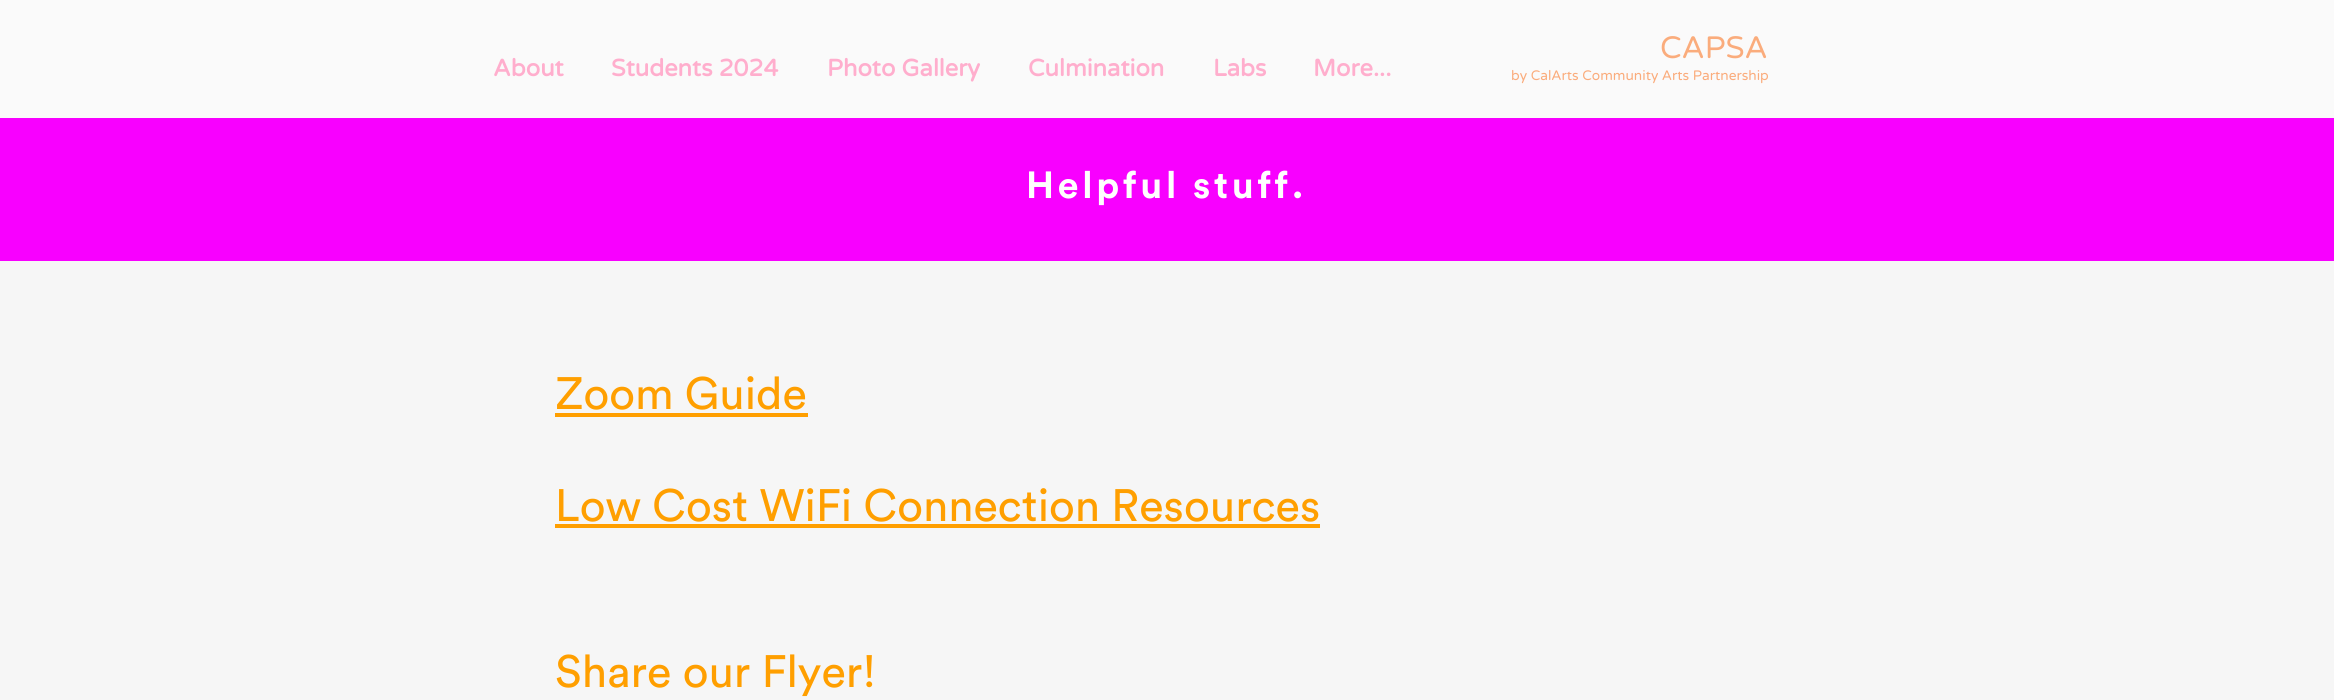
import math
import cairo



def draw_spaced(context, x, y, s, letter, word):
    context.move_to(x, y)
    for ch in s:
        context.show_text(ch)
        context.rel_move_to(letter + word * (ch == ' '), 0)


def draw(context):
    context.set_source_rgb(246 / 255, 246 / 255, 246 / 255)
    context.paint()
    context.set_source_rgb(250 / 255, 250 / 255, 250 / 255)
    context.rectangle(0, 0, 2334, 118)
    context.fill()
    context.set_source_rgb(248 / 255, 0, 1)
    context.rectangle(0, 118, 2334, 143)
    context.fill()
    context.set_source_rgb(1, 159 / 255, 0)
    context.rectangle(555, 413, 253, 4)
    context.fill()
    context.rectangle(555, 524, 765, 4)
    context.fill()
    context.select_font_face("Varela Round")
    context.set_font_size(31)
    context.set_source_rgb(250 / 255, 172 / 255, 124 / 255)
    context.move_to(1660, 58)
    context.show_text("CAPSA")
    context.select_font_face("Varela Round", cairo.FontSlant.NORMAL, cairo.FontWeight.BOLD)
    context.set_font_size(23.75)
    context.set_source_rgb(1, 174 / 255, 205 / 255)
    context.move_to(493, 76)
    context.show_text("About")
    context.move_to(611, 76)
    context.show_text("Students 2024")
    context.move_to(827, 76)
    context.show_text("Photo Gallery")
    context.move_to(1028, 76)
    context.show_text("Culmination")
    context.move_to(1213, 76)
    context.show_text("Labs")
    context.move_to(1313, 76)
    context.show_text("More...")
    context.select_font_face("Varela Round")
    context.set_font_size(13.75)
    context.set_source_rgb(250 / 255, 172 / 255, 124 / 255)
    context.move_to(1511, 80)
    context.show_text("by CalArts Community Arts Partnership")
    context.select_font_face("Circular", cairo.FontSlant.NORMAL, cairo.FontWeight.BOLD)
    context.set_font_size(37.5)
    context.set_source_rgb(1, 1, 1)
    draw_spaced(context, 1026, 198, "Helpful stuff.", 3.75, 0)
    context.select_font_face("Circular")
    context.set_font_size(45)
    context.set_source_rgb(1, 159 / 255, 0)
    context.move_to(555, 409)
    context.show_text("Zoom Guide")
    context.move_to(555, 521)
    context.show_text("Low Cost WiFi Connection Resources")
    context.move_to(555, 687)
    context.show_text("Share our Flyer!")


surface = cairo.ImageSurface(cairo.Format.RGB24, 2334, 700)
context = cairo.Context(surface)
options = cairo.FontOptions()
options.set_hint_metrics(cairo.HintMetrics.OFF)
options.set_hint_style(cairo.HintStyle.NONE)
context.set_font_options(options)
context.set_miter_limit(4)
draw(context)
surface.write_to_png("out.png")
